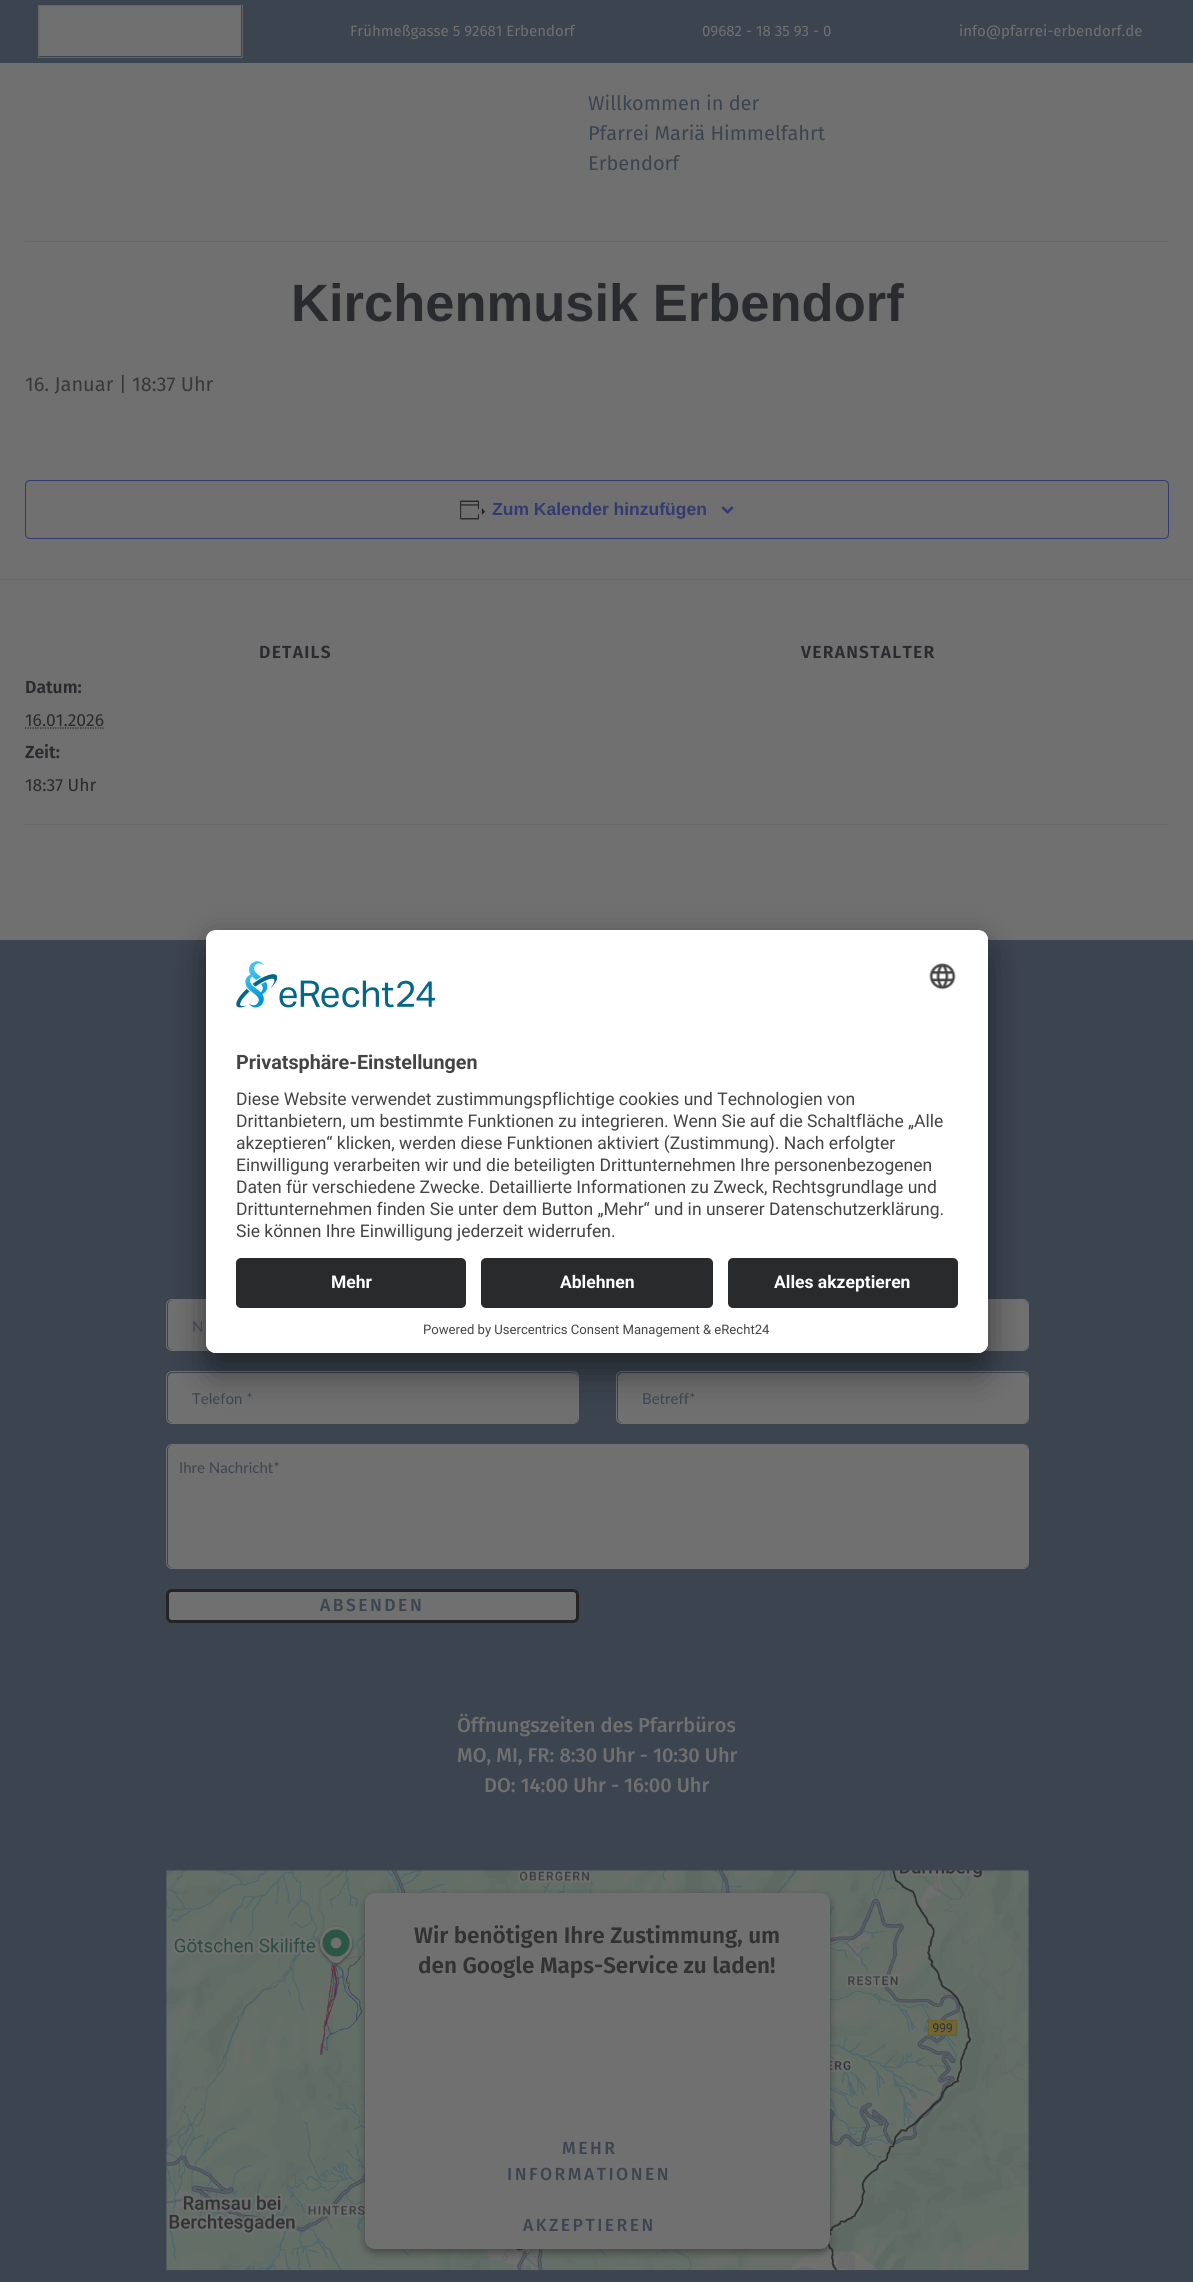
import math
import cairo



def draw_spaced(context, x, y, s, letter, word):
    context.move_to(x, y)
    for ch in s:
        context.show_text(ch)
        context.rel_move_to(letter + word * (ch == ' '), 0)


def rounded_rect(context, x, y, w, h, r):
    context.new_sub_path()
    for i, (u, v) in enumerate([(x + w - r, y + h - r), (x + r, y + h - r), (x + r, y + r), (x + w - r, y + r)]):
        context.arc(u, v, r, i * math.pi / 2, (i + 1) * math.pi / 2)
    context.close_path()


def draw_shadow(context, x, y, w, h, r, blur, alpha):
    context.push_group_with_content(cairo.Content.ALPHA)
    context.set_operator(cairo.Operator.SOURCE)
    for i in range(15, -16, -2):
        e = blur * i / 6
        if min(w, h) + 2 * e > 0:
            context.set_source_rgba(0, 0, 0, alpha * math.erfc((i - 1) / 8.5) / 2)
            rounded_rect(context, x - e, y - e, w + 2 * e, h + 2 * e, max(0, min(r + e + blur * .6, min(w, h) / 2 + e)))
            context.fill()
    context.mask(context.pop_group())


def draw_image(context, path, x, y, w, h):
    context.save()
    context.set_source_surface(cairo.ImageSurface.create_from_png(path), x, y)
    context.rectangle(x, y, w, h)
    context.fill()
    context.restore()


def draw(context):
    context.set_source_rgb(112 / 255, 112 / 255, 112 / 255)
    context.paint()
    context.set_source_rgb(60 / 255, 68 / 255, 80 / 255)
    context.rectangle(0, 0, 1193, 63)
    context.fill()
    context.set_source_rgb(112 / 255, 112 / 255, 112 / 255)
    context.rectangle(39, 6, 202, 50)
    context.fill()
    context.rectangle(38.5, 5.5, 204, 52)
    context.set_source_rgb(98 / 255, 99 / 255, 101 / 255)
    context.set_line_width(1)
    context.stroke()
    context.set_source_rgb(104 / 255, 104 / 255, 104 / 255)
    context.rectangle(25, 241, 1144, 1)
    context.fill()
    rounded_rect(context, 25.5, 480.5, 1143, 58, 4.5)
    context.set_source_rgb(51 / 255, 58 / 255, 112 / 255)
    context.stroke()
    draw_image(context, "images/1.png", 460, 500, 26, 20)
    draw_image(context, "images/2.png", 721, 506, 13, 8)
    context.set_source_rgb(104 / 255, 104 / 255, 104 / 255)
    context.rectangle(0, 579, 1193, 1)
    context.fill()
    context.new_path()
    context.move_to(25, 728)
    context.line_to(104, 728)
    context.set_source_rgb(42 / 255, 43 / 255, 47 / 255)
    context.set_line_width(1.2)
    context.set_dash([1.25, 1.25])
    context.stroke()
    context.set_source_rgb(104 / 255, 104 / 255, 104 / 255)
    context.rectangle(25, 824, 1144, 1)
    context.fill()
    context.set_source_rgb(60 / 255, 68 / 255, 80 / 255)
    context.rectangle(0, 940, 1193, 1342)
    context.fill()
    context.set_source_rgb(112 / 255, 112 / 255, 112 / 255)
    rounded_rect(context, 168, 1300, 410, 50, 5)
    context.fill()
    rounded_rect(context, 166.5, 1299.5, 412, 51, 5.5)
    context.set_line_width(1)
    context.set_dash([])
    context.stroke()
    rounded_rect(context, 618, 1300, 410, 50, 5)
    context.fill()
    rounded_rect(context, 616.5, 1299.5, 412, 51, 5.5)
    context.stroke()
    rounded_rect(context, 168, 1373, 410, 50, 5)
    context.fill()
    rounded_rect(context, 166.5, 1371.5, 412, 52, 5.5)
    context.stroke()
    rounded_rect(context, 618, 1373, 410, 50, 5)
    context.fill()
    rounded_rect(context, 616.5, 1371.5, 412, 52, 5.5)
    context.stroke()
    context.set_source_rgb(0, 0, 0)
    draw_shadow(context, 206, 955, 782, 423, 10, 17.5, 0.3)
    draw_shadow(context, 206, 936, 782, 423, 10, 16, 0.22)
    context.set_source_rgb(1, 1, 1)
    rounded_rect(context, 206, 930, 782, 423, 10)
    context.fill()
    context.save()
    rounded_rect(context, 206, 930, 782, 423, 10)
    context.clip()
    context.new_path()
    context.move_to(216, 930)
    context.line_to(978, 930)
    context.curve_to(983.5, 930, 988, 934.5, 988, 940)
    context.line_to(988, 1248)
    context.line_to(206, 1248)
    context.line_to(206, 940)
    context.curve_to(206, 934.5, 210.5, 930, 216, 930)
    context.close_path()
    context.clip()
    context.rectangle(206, 931, 782, 317)
    context.fill()
    context.restore()
    draw_image(context, "images/3.png", 236, 961, 200, 47)
    draw_image(context, "images/4.png", 929, 963, 27, 27)
    context.new_path()
    context.move_to(206, 1248)
    context.line_to(988, 1248)
    context.line_to(988, 1343)
    context.curve_to(988, 1348.5, 983.5, 1353, 978, 1353)
    context.line_to(216, 1353)
    context.curve_to(210.5, 1353, 206, 1348.5, 206, 1343)
    context.close_path()
    context.fill()
    context.set_source_rgb(41 / 255, 42 / 255, 43 / 255)
    rounded_rect(context, 236, 1258, 230, 50, 5)
    context.fill()
    rounded_rect(context, 481, 1258, 232, 50, 5)
    context.fill()
    rounded_rect(context, 728, 1258, 230, 50, 5)
    context.fill()
    context.set_source_rgb(112 / 255, 112 / 255, 112 / 255)
    rounded_rect(context, 168, 1445, 860, 123, 5)
    context.fill()
    rounded_rect(context, 166.5, 1444.5, 862, 124, 5.5)
    context.stroke()
    rounded_rect(context, 167.5, 1590.5, 410, 31, 4.5)
    context.fill_preserve()
    context.set_source_rgb(36 / 255, 36 / 255, 36 / 255)
    context.set_line_width(3)
    context.stroke()
    draw_image(context, "images/5.png", 166, 1870, 863, 401)
    context.set_source_rgb(36 / 255, 36 / 255, 36 / 255)
    draw_shadow(context, 365, 1896, 465, 357, 10, 4, 0.5)
    context.set_source_rgb(112 / 255, 112 / 255, 112 / 255)
    rounded_rect(context, 365, 1893, 465, 356, 10)
    context.fill()
    context.select_font_face("Fira Sans")
    context.set_font_size(15)
    context.move_to(350, 36)
    context.show_text("Frühmeßgasse 5 92681 Erbendorf")
    context.move_to(702, 36)
    context.show_text("09682 - 18 35 93 - 0")
    context.move_to(959, 36)
    context.show_text("info@pfarrei-erbendorf.de")
    context.set_font_size(20)
    context.set_source_rgb(60 / 255, 68 / 255, 80 / 255)
    context.move_to(588, 110)
    context.show_text("Willkommen in der")
    context.move_to(588, 140)
    context.show_text("Pfarrei Mariä Himmelfahrt")
    context.move_to(588, 170)
    context.show_text("Erbendorf")
    context.select_font_face("Liberation Sans", cairo.FontSlant.NORMAL, cairo.FontWeight.BOLD)
    context.set_font_size(52.5)
    context.set_source_rgb(42 / 255, 43 / 255, 47 / 255)
    context.move_to(291, 321)
    context.show_text("Kirchenmusik Erbendorf")
    context.select_font_face("Fira Sans")
    context.set_font_size(20)
    context.set_source_rgb(56 / 255, 56 / 255, 56 / 255)
    context.move_to(25, 391)
    context.show_text("16. Januar | 18:37 Uhr")
    context.select_font_face("Liberation Sans", cairo.FontSlant.NORMAL, cairo.FontWeight.BOLD)
    context.set_font_size(17.5)
    context.set_source_rgb(51 / 255, 58 / 255, 112 / 255)
    context.move_to(492, 515)
    context.show_text("Zum Kalender hinzufügen")
    context.select_font_face("Fira Sans SemiBold")
    context.set_source_rgb(42 / 255, 43 / 255, 47 / 255)
    draw_spaced(context, 259, 658, "DETAILS", 1.25, 0)
    context.move_to(25, 693)
    context.show_text("Datum:")
    context.select_font_face("Fira Sans")
    context.move_to(25, 726)
    context.show_text("16.01.2026")
    context.select_font_face("Fira Sans SemiBold")
    context.move_to(25, 758)
    context.show_text("Zeit:")
    context.select_font_face("Fira Sans")
    context.move_to(25, 791)
    context.show_text("18:37 Uhr")
    context.select_font_face("Fira Sans SemiBold")
    draw_spaced(context, 801, 658, "VERANSTALTER", 1.25, 0)
    context.select_font_face("Roboto", cairo.FontSlant.NORMAL, cairo.FontWeight.BOLD)
    context.set_font_size(19.75)
    context.set_source_rgb(68 / 255, 68 / 255, 68 / 255)
    context.move_to(236, 1069)
    context.show_text("Privatsphäre-Einstellungen")
    context.select_font_face("Roboto")
    context.set_font_size(17.5)
    context.move_to(236, 1105)
    context.show_text("Diese Website verwendet zustimmungspflichtige cookies und Technologien von")
    context.move_to(236, 1127)
    context.show_text("Drittanbietern, um bestimmte Funktionen zu integrieren. Wenn Sie auf die Schaltfläche „Alle")
    context.move_to(236, 1149)
    context.show_text("akzeptieren“ klicken, werden diese Funktionen aktiviert (Zustimmung). Nach erfolgter")
    context.move_to(236, 1171)
    context.show_text("Einwilligung verarbeiten wir und die beteiligten Drittunternehmen Ihre personenbezogenen")
    context.move_to(236, 1193)
    context.show_text("Daten für verschiedene Zwecke. Detaillierte Informationen zu Zweck, Rechtsgrundlage und")
    context.move_to(236, 1215)
    context.show_text("Drittunternehmen finden Sie unter dem Button „Mehr“ und in unserer Datenschutzerklärung.")
    context.move_to(236, 1237)
    context.show_text("Sie können Ihre Einwilligung jederzeit widerrufen.")
    context.select_font_face("Roboto", cairo.FontSlant.NORMAL, cairo.FontWeight.BOLD)
    context.set_source_rgb(1, 1, 1)
    context.move_to(331, 1288)
    context.show_text("Mehr")
    context.move_to(560, 1288)
    context.show_text("Ablehnen")
    context.move_to(774, 1288)
    context.show_text("Alles akzeptieren")
    context.select_font_face("Roboto")
    context.set_font_size(13.1)
    context.set_source_rgb(68 / 255, 68 / 255, 68 / 255)
    context.move_to(423, 1334)
    context.show_text("Powered by Usercentrics Consent Management & eRecht24")
    context.select_font_face("Lato")
    context.set_font_size(15)
    context.set_source_rgb(60 / 255, 68 / 255, 80 / 255)
    context.move_to(192, 1332)
    context.show_text("N")
    context.move_to(192, 1404)
    context.show_text("Telefon *")
    context.move_to(642, 1404)
    context.show_text("Betreff*")
    context.move_to(179, 1473)
    context.show_text("Ihre Nachricht*")
    context.select_font_face("Fira Sans Medium")
    context.set_font_size(17.5)
    draw_spaced(context, 320, 1611, "ABSENDEN", 2.5, 0)
    context.set_font_size(20)
    context.set_source_rgb(112 / 255, 112 / 255, 112 / 255)
    context.move_to(457, 1732)
    context.show_text("Öffnungszeiten des Pfarrbüros")
    context.move_to(457, 1762)
    context.show_text("MO, MI, FR: 8:30 Uhr - 10:30 Uhr")
    context.move_to(484, 1792)
    context.show_text("DO: 14:00 Uhr - 16:00 Uhr")
    context.select_font_face("Fira Sans SemiBold")
    context.set_font_size(22.5)
    context.set_source_rgb(50 / 255, 50 / 255, 50 / 255)
    context.move_to(414, 1943)
    context.show_text("Wir benötigen Ihre Zustimmung, um")
    context.move_to(418, 1973)
    context.show_text("den Google Maps-Service zu laden!")
    context.select_font_face("Fira Sans Medium")
    context.set_font_size(17.5)
    context.set_source_rgb(60 / 255, 68 / 255, 80 / 255)
    draw_spaced(context, 562, 2154, "MEHR", 2.5, 0)
    draw_spaced(context, 507, 2180, "INFORMATIONEN", 2.5, 0)
    draw_spaced(context, 523, 2231, "AKZEPTIEREN", 2.5, 0)


surface = cairo.ImageSurface(cairo.Format.RGB24, 1193, 2282)
context = cairo.Context(surface)
options = cairo.FontOptions()
options.set_hint_metrics(cairo.HintMetrics.OFF)
options.set_hint_style(cairo.HintStyle.NONE)
context.set_font_options(options)
context.set_miter_limit(4)
draw(context)
surface.write_to_png("out.png")
